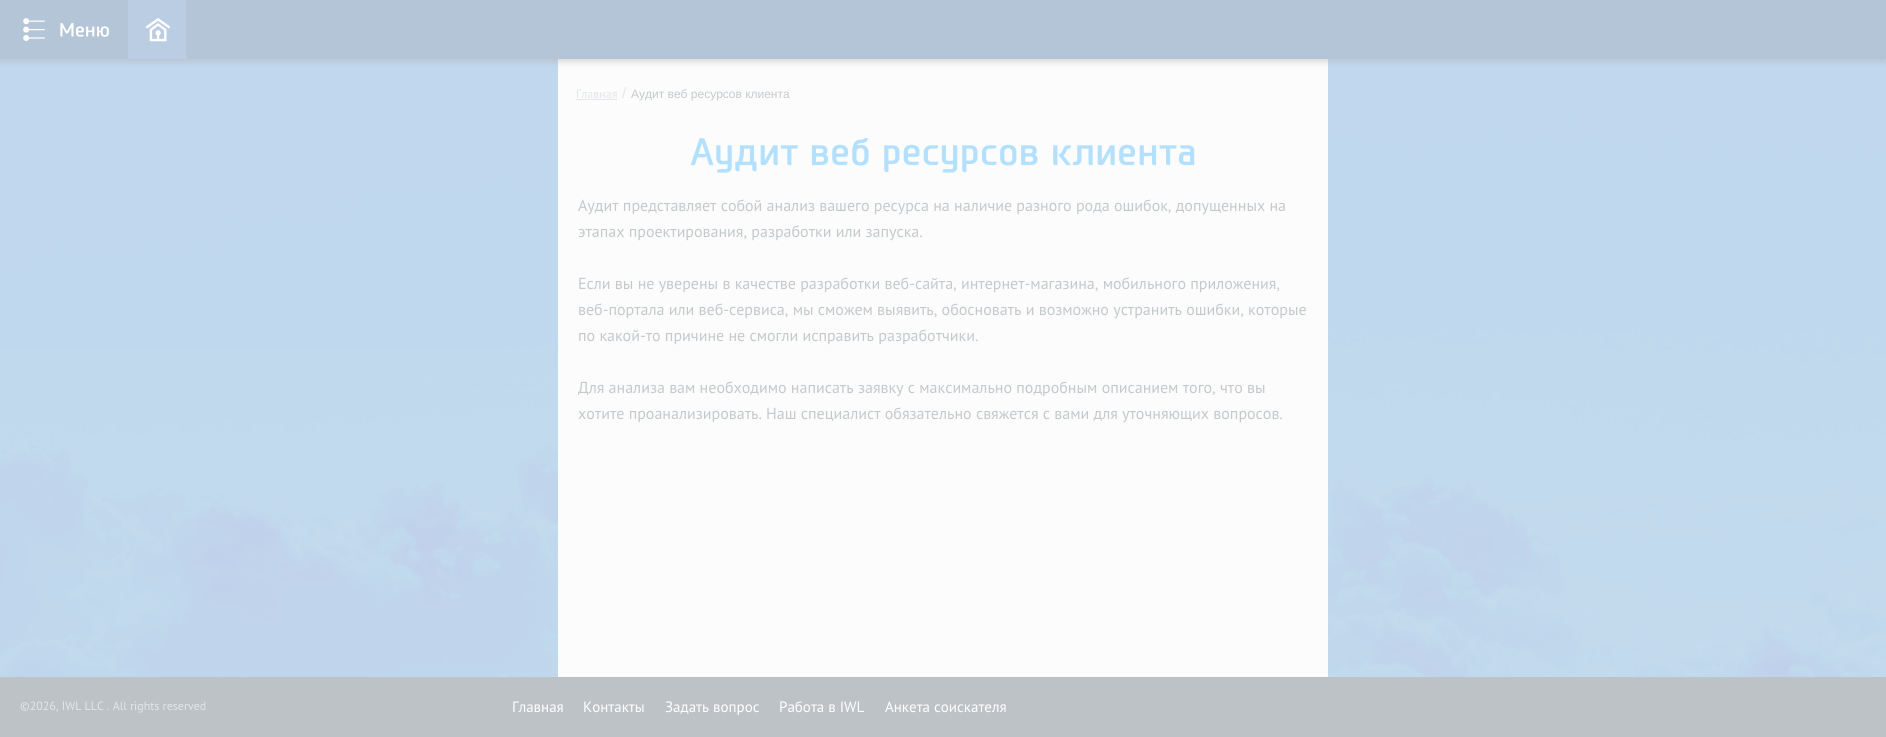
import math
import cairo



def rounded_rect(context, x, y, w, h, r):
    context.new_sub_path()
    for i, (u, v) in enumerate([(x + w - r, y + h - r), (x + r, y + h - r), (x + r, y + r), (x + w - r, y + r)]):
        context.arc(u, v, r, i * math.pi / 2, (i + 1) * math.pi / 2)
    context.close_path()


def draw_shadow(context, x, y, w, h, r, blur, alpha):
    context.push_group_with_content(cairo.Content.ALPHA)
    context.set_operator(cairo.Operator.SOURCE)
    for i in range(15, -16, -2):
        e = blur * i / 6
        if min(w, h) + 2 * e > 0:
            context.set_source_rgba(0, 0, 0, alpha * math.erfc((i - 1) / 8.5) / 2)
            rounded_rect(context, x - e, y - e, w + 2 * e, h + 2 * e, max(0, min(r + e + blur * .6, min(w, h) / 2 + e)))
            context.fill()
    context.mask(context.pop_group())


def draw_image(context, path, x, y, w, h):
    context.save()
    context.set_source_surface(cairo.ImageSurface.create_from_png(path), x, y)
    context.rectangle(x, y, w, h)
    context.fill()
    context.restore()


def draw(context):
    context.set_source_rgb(1, 1, 1)
    context.paint()
    draw_image(context, "images/1.png", 0, 59, 1886, 618)
    context.set_source_rgb(252 / 255, 252 / 255, 252 / 255)
    context.rectangle(558, 59, 770, 618)
    context.fill()
    context.set_source_rgb(179 / 255, 179 / 255, 179 / 255)
    draw_shadow(context, 0, 3, 1886, 59, 0, 3, 0.5)
    context.set_source_rgb(180 / 255, 197 / 255, 216 / 255)
    context.rectangle(0, 0, 1886, 59)
    context.fill()
    draw_image(context, "images/2.png", 23, 18, 22, 23)
    context.set_source_rgb(186 / 255, 205 / 255, 226 / 255)
    context.rectangle(128, 0, 58, 59)
    context.fill()
    draw_image(context, "images/3.png", 146, 18, 24, 24)
    context.set_source_rgb(227 / 255, 230 / 255, 233 / 255)
    context.rectangle(576, 99, 41, 1)
    context.fill()
    context.set_source_rgb(189 / 255, 194 / 255, 199 / 255)
    context.rectangle(0, 677, 1886, 60)
    context.fill()
    context.select_font_face("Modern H", cairo.FontSlant.NORMAL, cairo.FontWeight.BOLD)
    context.set_font_size(18)
    context.set_source_rgb(1, 1, 1)
    context.move_to(59, 36)
    context.show_text("Меню")
    context.select_font_face("PT Sans")
    context.set_font_size(12)
    context.set_source_rgb(227 / 255, 230 / 255, 233 / 255)
    context.move_to(576, 98)
    context.show_text("Главная")
    context.select_font_face("Liberation Sans")
    context.set_font_size(15)
    context.move_to(622, 98)
    context.show_text("/")
    context.set_font_size(12)
    context.set_source_rgb(196 / 255, 201 / 255, 204 / 255)
    context.move_to(631, 98)
    context.show_text("Аудит веб ресурсов клиента")
    context.select_font_face("Modern H", cairo.FontSlant.NORMAL, cairo.FontWeight.BOLD)
    context.set_font_size(36)
    context.set_source_rgb(179 / 255, 224 / 255, 1)
    context.move_to(690, 164)
    context.show_text("Аудит веб ресурсов клиента")
    context.select_font_face("PT Sans")
    context.set_font_size(16)
    context.set_source_rgb(196 / 255, 201 / 255, 204 / 255)
    context.move_to(578, 211)
    context.show_text("Аудит представляет собой анализ вашего ресурса на наличие разного рода ошибок, допущенных на")
    context.move_to(578, 237)
    context.show_text("этапах проектирования, разработки или запуска.")
    context.move_to(578, 289)
    context.show_text("Если вы не уверены в качестве разработки веб-сайта, интернет-магазина, мобильного приложения,")
    context.move_to(578, 315)
    context.show_text("веб-портала или веб-сервиса, мы сможем выявить, обосновать и возможно устранить ошибки, которые")
    context.move_to(578, 341)
    context.show_text("по какой-то причине не смогли исправить разработчики.")
    context.move_to(578, 393)
    context.show_text("Для анализа вам необходимо написать заявку с максимально подробным описанием того, что вы")
    context.move_to(578, 419)
    context.show_text("хотите проанализировать. Наш специалист обязательно свяжется с вами для уточняющих вопросов.")
    context.set_font_size(12)
    context.set_source_rgb(227 / 255, 230 / 255, 233 / 255)
    context.move_to(20, 710)
    context.show_text("©2026, IWL LLC . All rights reserved")
    context.set_font_size(15)
    context.set_source_rgb(1, 1, 1)
    context.move_to(512, 712)
    context.show_text("Главная")
    context.move_to(583, 712)
    context.show_text("Контакты")
    context.move_to(665, 712)
    context.show_text("Задать вопрос")
    context.move_to(779, 712)
    context.show_text("Работа в IWL")
    context.move_to(885, 712)
    context.show_text("Анкета соискателя")


surface = cairo.ImageSurface(cairo.Format.RGB24, 1886, 737)
context = cairo.Context(surface)
options = cairo.FontOptions()
options.set_hint_metrics(cairo.HintMetrics.OFF)
options.set_hint_style(cairo.HintStyle.NONE)
context.set_font_options(options)
context.set_miter_limit(4)
draw(context)
surface.write_to_png("out.png")
